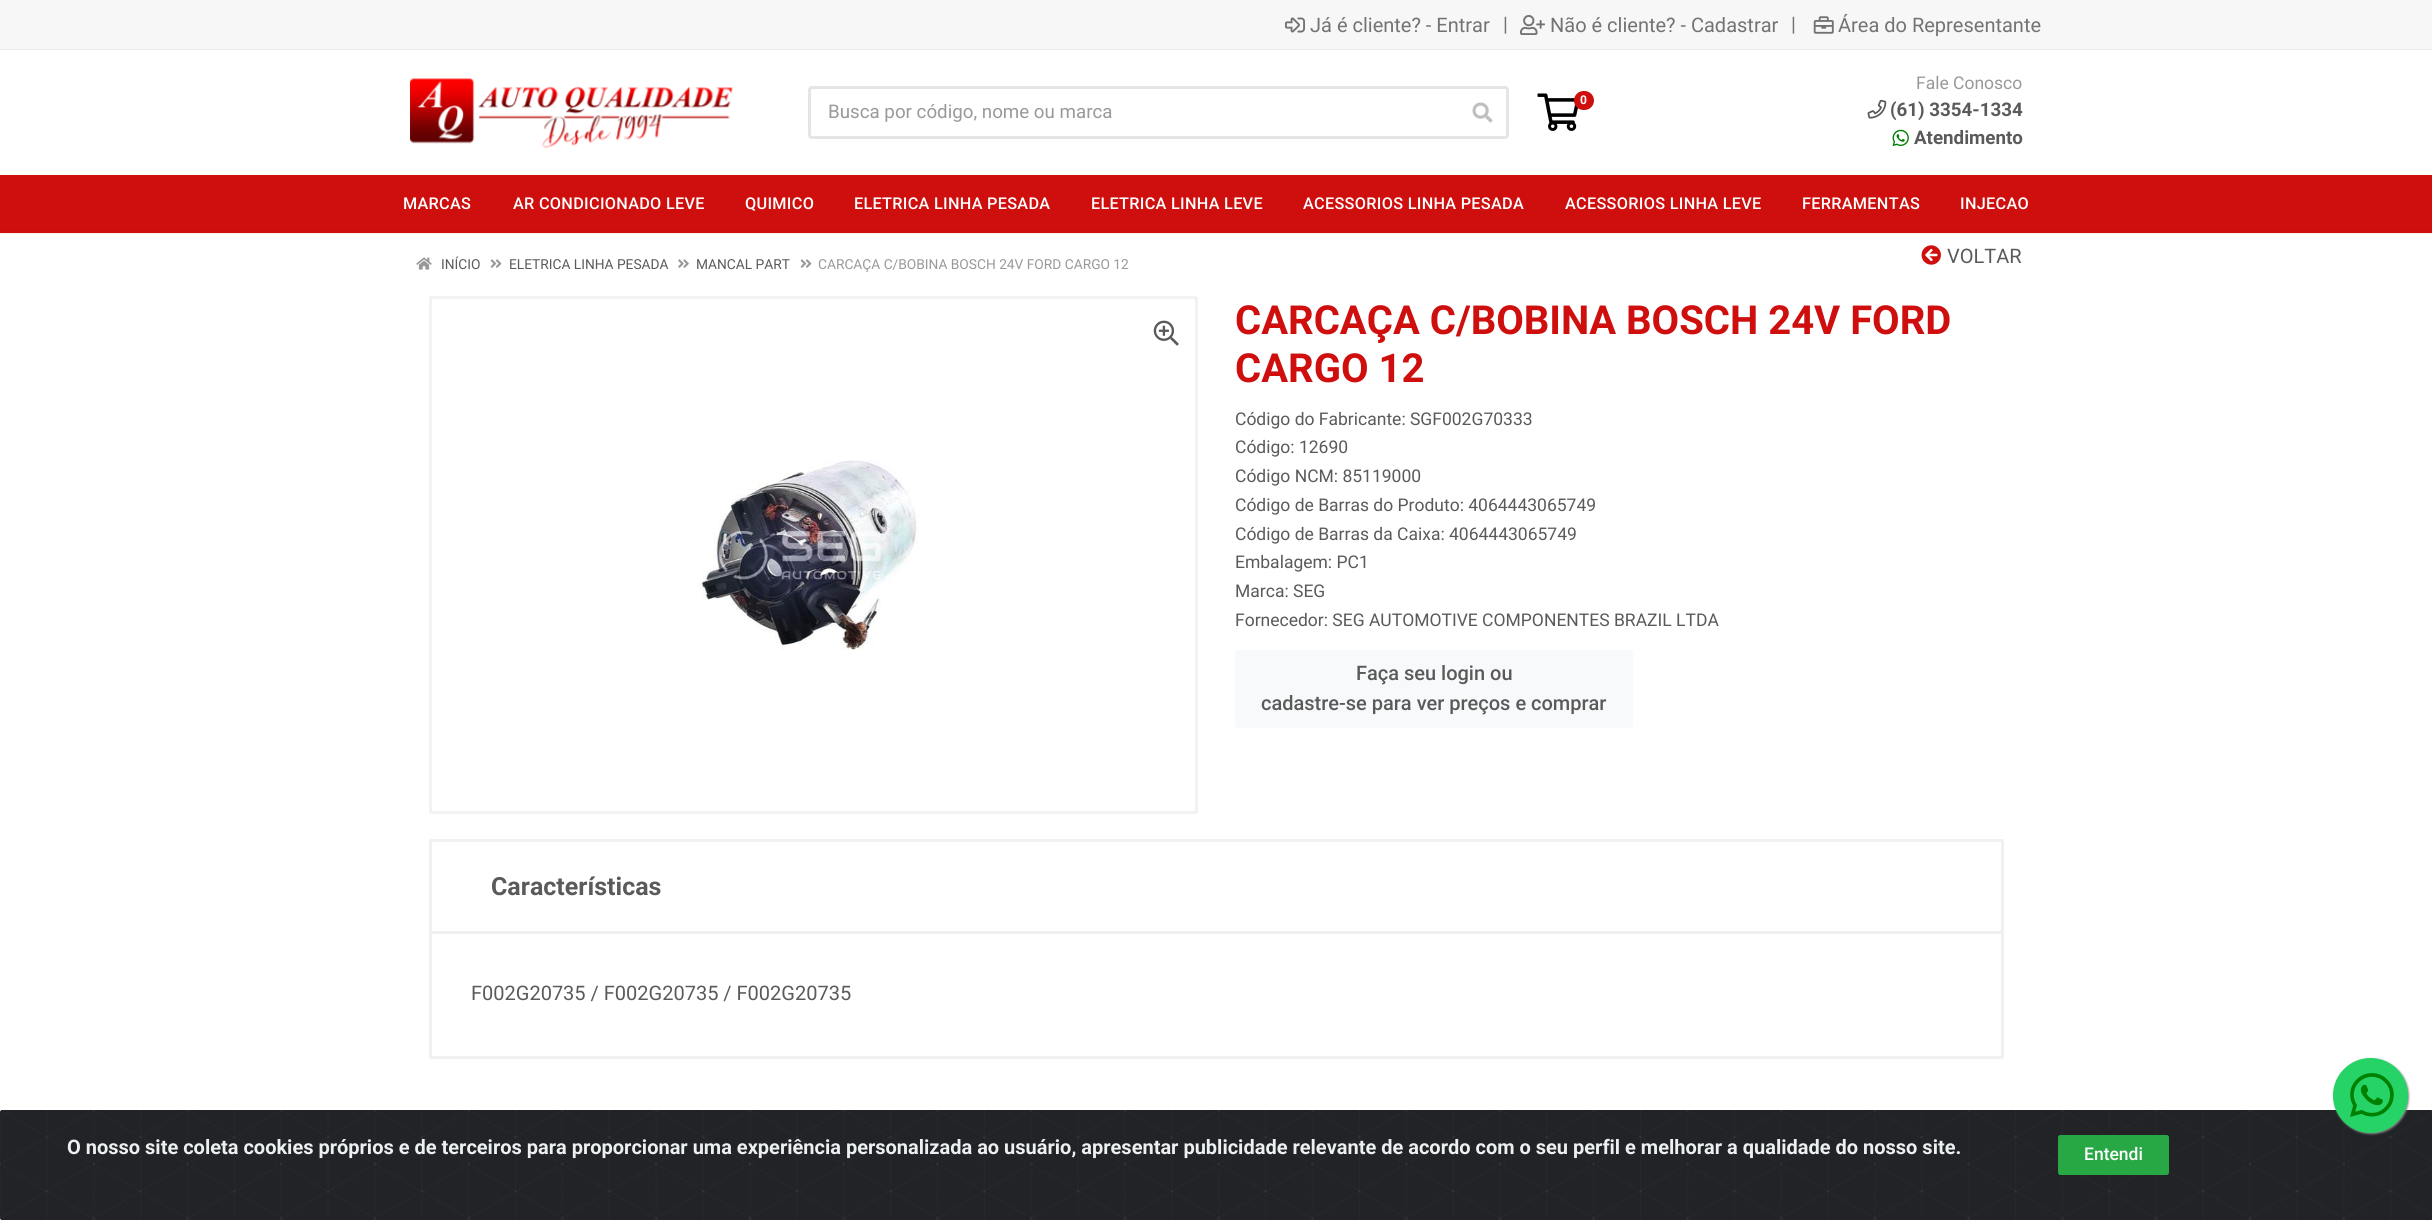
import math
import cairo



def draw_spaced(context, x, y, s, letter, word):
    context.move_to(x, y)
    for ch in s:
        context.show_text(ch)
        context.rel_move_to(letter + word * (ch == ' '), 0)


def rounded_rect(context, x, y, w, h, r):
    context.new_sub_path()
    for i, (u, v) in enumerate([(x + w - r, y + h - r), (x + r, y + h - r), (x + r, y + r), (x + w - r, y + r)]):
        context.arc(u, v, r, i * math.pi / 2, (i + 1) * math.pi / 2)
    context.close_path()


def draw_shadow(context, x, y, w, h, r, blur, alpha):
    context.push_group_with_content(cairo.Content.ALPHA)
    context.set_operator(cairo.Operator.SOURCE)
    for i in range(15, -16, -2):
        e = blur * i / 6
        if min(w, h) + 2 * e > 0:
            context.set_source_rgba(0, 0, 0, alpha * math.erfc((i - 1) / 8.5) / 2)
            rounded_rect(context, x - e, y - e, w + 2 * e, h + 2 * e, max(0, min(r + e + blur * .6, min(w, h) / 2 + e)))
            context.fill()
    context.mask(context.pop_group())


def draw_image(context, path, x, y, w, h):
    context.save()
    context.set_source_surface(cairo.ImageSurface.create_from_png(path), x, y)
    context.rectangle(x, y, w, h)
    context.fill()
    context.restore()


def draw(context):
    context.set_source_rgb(1, 1, 1)
    context.paint()
    context.set_source_rgb(247 / 255, 247 / 255, 247 / 255)
    context.rectangle(0, 0, 2432, 49)
    context.fill()
    context.set_source_rgb(235 / 255, 235 / 255, 235 / 255)
    context.rectangle(0, 49, 2432, 1)
    context.fill()
    draw_image(context, "images/1.png", 1285, 17, 20, 16)
    draw_image(context, "images/2.png", 1520, 15, 25, 20)
    draw_image(context, "images/3.png", 1813, 16, 21, 18)
    draw_image(context, "images/4.png", 410, 78, 323, 70)
    draw_image(context, "images/5.png", 1537, 93, 41, 38)
    context.set_source_rgb(207 / 255, 14 / 255, 14 / 255)
    rounded_rect(context, 1574, 91, 20, 19, 9.5)
    context.fill()
    draw_image(context, "images/6.png", 1867, 99, 20, 20)
    draw_image(context, "images/7.png", 1892, 129, 17, 18)
    rounded_rect(context, 809.5, 87.5, 698, 50, 2.5)
    context.set_source_rgb(229 / 255, 229 / 255, 229 / 255)
    context.set_line_width(3)
    context.stroke()
    draw_image(context, "images/8.png", 1472, 102, 21, 21)
    context.set_source_rgb(245 / 255, 245 / 255, 245 / 255)
    context.new_path()
    context.move_to(0, 232)
    context.line_to(0, 234)
    context.line_to(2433, 234)
    context.line_to(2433, 176)
    context.line_to(2432, 176)
    context.line_to(2432, 232)
    context.close_path()
    context.fill()
    context.set_source_rgb(207 / 255, 14 / 255, 14 / 255)
    context.rectangle(0, 175, 2432, 58)
    context.fill()
    context.set_source_rgb(199 / 255, 13 / 255, 13 / 255)
    context.rectangle(0, 231, 2432, 1)
    context.fill()
    draw_image(context, "images/9.png", 416, 257, 16, 13)
    draw_image(context, "images/10.png", 490, 259, 12, 9)
    draw_image(context, "images/11.png", 678, 259, 11, 9)
    draw_image(context, "images/10.png", 800, 259, 12, 9)
    draw_image(context, "images/12.png", 1921, 245, 20, 20)
    rounded_rect(context, 430.5, 297.5, 766, 515, 1)
    context.set_source_rgb(242 / 255, 242 / 255, 242 / 255)
    context.stroke()
    draw_image(context, "images/13.png", 1153, 320, 26, 26)
    draw_image(context, "images/14.png", 697, 460, 222, 190)
    context.set_source_rgb(248 / 255, 249 / 255, 250 / 255)
    rounded_rect(context, 1235, 650, 398, 78, 2.5)
    context.fill()
    rounded_rect(context, 430.5, 840.5, 1572, 217, 1)
    context.set_source_rgb(240 / 255, 240 / 255, 240 / 255)
    context.stroke()
    context.rectangle(431, 931, 1570, 3)
    context.fill()
    context.set_source_rgb(33 / 255, 35 / 255, 39 / 255)
    rounded_rect(context, 0, 1110, 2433, 110, 2.5)
    context.fill()
    draw_image(context, "images/16.png", 0, 1110, 2432, 110)
    context.set_source_rgb(136 / 255, 136 / 255, 136 / 255)
    draw_shadow(context, 2334, 1059, 75, 75, 37.5, 1, 1)
    context.set_source_rgb(37 / 255, 211 / 255, 102 / 255)
    context.arc(2370.5, 1095.5, 37.5, 0, 2 * math.pi)
    context.fill()
    draw_image(context, "images/15.png", 2350, 1073, 44, 44)
    context.set_source_rgb(40 / 255, 167 / 255, 69 / 255)
    rounded_rect(context, 2058.5, 1135.5, 110, 39, 2)
    context.fill_preserve()
    context.set_line_width(1)
    context.stroke()
    context.select_font_face("Roboto")
    context.set_font_size(20)
    context.set_source_rgb(115 / 255, 115 / 255, 115 / 255)
    context.move_to(1310, 32)
    context.show_text("Já é cliente? - Entrar")
    context.move_to(1503, 31)
    context.show_text("|")
    context.move_to(1550, 32)
    context.show_text("Não é cliente? - Cadastrar")
    context.move_to(1791, 31)
    context.show_text("|")
    context.move_to(1838, 32)
    context.show_text("Área do Representante")
    context.select_font_face("Roboto", cairo.FontSlant.NORMAL, cairo.FontWeight.BOLD)
    context.set_font_size(12)
    context.set_source_rgb(1, 1, 1)
    context.move_to(1580, 104)
    context.show_text("0")
    context.select_font_face("Roboto")
    context.set_font_size(17.5)
    context.set_source_rgb(153 / 255, 153 / 255, 153 / 255)
    context.move_to(1916, 89)
    context.show_text("Fale Conosco")
    context.select_font_face("Roboto", cairo.FontSlant.NORMAL, cairo.FontWeight.BOLD)
    context.set_font_size(18.75)
    context.set_source_rgb(90 / 255, 90 / 255, 90 / 255)
    context.move_to(1890, 116)
    context.show_text("(61) 3354-1334")
    context.move_to(1914, 144)
    context.show_text("Atendimento")
    context.select_font_face("Roboto")
    context.set_source_rgb(153 / 255, 153 / 255, 153 / 255)
    context.move_to(828, 118)
    context.show_text("Busca por código, nome ou marca")
    context.select_font_face("Roboto Medium")
    context.set_font_size(16.25)
    context.set_source_rgb(1, 1, 1)
    draw_spaced(context, 403, 209, "MARCAS", 0.3, 0)
    draw_spaced(context, 513, 209, "AR CONDICIONADO LEVE", 0.3, 0)
    draw_spaced(context, 745, 209, "QUIMICO", 0.3, 0)
    draw_spaced(context, 854, 209, "ELETRICA LINHA PESADA", 0.3, 0)
    draw_spaced(context, 1091, 209, "ELETRICA LINHA LEVE", 0.3, 0)
    draw_spaced(context, 1303, 209, "ACESSORIOS LINHA PESADA", 0.3, 0)
    draw_spaced(context, 1565, 209, "ACESSORIOS LINHA LEVE", 0.3, 0)
    draw_spaced(context, 1802, 209, "FERRAMENTAS", 0.3, 0)
    draw_spaced(context, 1960, 209, "INJECAO", 0.3, 0)
    context.select_font_face("Roboto")
    context.set_font_size(13.75)
    context.set_source_rgb(90 / 255, 90 / 255, 90 / 255)
    context.move_to(441, 269)
    context.show_text("INÍCIO")
    context.move_to(509, 269)
    context.show_text("ELETRICA LINHA PESADA")
    context.move_to(696, 269)
    context.show_text("MANCAL PART")
    context.set_source_rgb(153 / 255, 153 / 255, 153 / 255)
    context.move_to(818, 269)
    context.show_text("CARCAÇA C/BOBINA BOSCH 24V FORD CARGO 12")
    context.set_font_size(20)
    context.set_source_rgb(90 / 255, 90 / 255, 90 / 255)
    context.move_to(1947, 263)
    context.show_text("VOLTAR")
    context.select_font_face("Roboto", cairo.FontSlant.NORMAL, cairo.FontWeight.BOLD)
    context.set_font_size(40)
    context.set_source_rgb(207 / 255, 14 / 255, 14 / 255)
    context.move_to(1235, 334)
    context.show_text("CARCAÇA C/BOBINA BOSCH 24V FORD")
    context.move_to(1235, 382)
    context.show_text("CARGO 12")
    context.select_font_face("Roboto")
    context.set_font_size(17.5)
    context.set_source_rgb(90 / 255, 90 / 255, 90 / 255)
    context.move_to(1235, 425)
    context.show_text("Código do Fabricante: SGF002G70333")
    context.move_to(1235, 453)
    context.show_text("Código: 12690")
    context.move_to(1235, 482)
    context.show_text("Código NCM: 85119000")
    context.move_to(1235, 511)
    context.show_text("Código de Barras do Produto: 4064443065749")
    context.move_to(1235, 540)
    context.show_text("Código de Barras da Caixa: 4064443065749")
    context.move_to(1235, 568)
    context.show_text("Embalagem: PC1")
    context.move_to(1235, 597)
    context.show_text("Marca: SEG")
    context.move_to(1235, 626)
    context.show_text("Fornecedor: SEG AUTOMOTIVE COMPONENTES BRAZIL LTDA")
    context.select_font_face("Roboto Medium")
    context.set_font_size(20)
    context.move_to(1356, 680)
    context.show_text("Faça seu login ou")
    context.move_to(1261, 710)
    context.show_text("cadastre-se para ver preços e comprar")
    context.select_font_face("Roboto", cairo.FontSlant.NORMAL, cairo.FontWeight.BOLD)
    context.set_font_size(25)
    context.move_to(491, 895)
    context.show_text("Características")
    context.select_font_face("Roboto")
    context.set_font_size(20)
    context.move_to(471, 1000)
    context.show_text("F002G20735 / F002G20735 / F002G20735")
    context.select_font_face("Roboto", cairo.FontSlant.NORMAL, cairo.FontWeight.BOLD)
    context.set_source_rgb(236 / 255, 240 / 255, 241 / 255)
    context.move_to(67, 1154)
    context.show_text("O nosso site coleta cookies próprios e de terceiros para proporcionar uma experiência personalizada ao usuário, apresentar publicidade relevante de acordo com o seu perfil e melhorar a qualidade do nosso site.")
    context.select_font_face("Roboto Medium")
    context.set_font_size(17.5)
    context.set_source_rgb(1, 1, 1)
    context.move_to(2084, 1160)
    context.show_text("Entendi")


surface = cairo.ImageSurface(cairo.Format.RGB24, 2432, 1220)
context = cairo.Context(surface)
options = cairo.FontOptions()
options.set_hint_metrics(cairo.HintMetrics.OFF)
options.set_hint_style(cairo.HintStyle.NONE)
context.set_font_options(options)
context.set_miter_limit(4)
draw(context)
surface.write_to_png("out.png")
